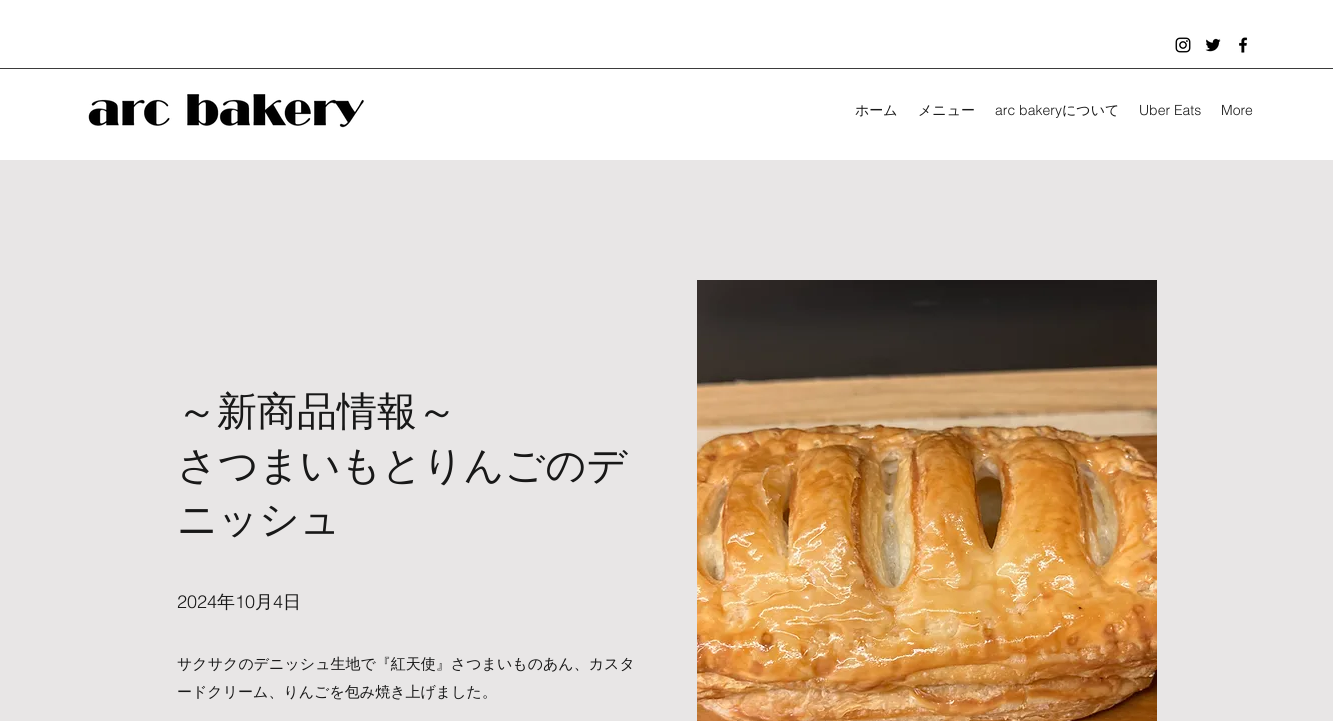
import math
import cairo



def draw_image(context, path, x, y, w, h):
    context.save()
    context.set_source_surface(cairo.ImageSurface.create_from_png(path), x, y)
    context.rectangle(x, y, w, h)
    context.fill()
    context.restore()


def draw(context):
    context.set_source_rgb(1, 1, 1)
    context.paint()
    draw_image(context, "images/1.png", 1175, 37, 16, 16)
    draw_image(context, "images/2.png", 1205, 38, 16, 14)
    draw_image(context, "images/3.png", 1239, 37, 9, 16)
    context.set_source_rgb(59 / 255, 59 / 255, 59 / 255)
    context.rectangle(0, 68, 1333, 1)
    context.fill()
    draw_image(context, "images/4.png", 88, 94, 276, 34)
    context.set_source_rgb(232 / 255, 230 / 255, 230 / 255)
    context.rectangle(0, 160, 1333, 561)
    context.fill()
    draw_image(context, "images/5.png", 697, 280, 460, 441)
    context.select_font_face("WenQuanYi Zen Hei Medium")
    context.set_font_size(14)
    context.set_source_rgb(24 / 255, 24 / 255, 24 / 255)
    context.move_to(855, 115)
    context.show_text("ホーム")
    context.move_to(918, 115)
    context.show_text("メニュー")
    context.select_font_face("helvetica Light")
    context.move_to(995, 115)
    context.show_text("arc bakery")
    context.select_font_face("WenQuanYi Zen Hei Medium")
    context.move_to(1062, 115)
    context.show_text("について")
    context.select_font_face("helvetica Light")
    context.move_to(1139, 115)
    context.show_text("Uber Eats")
    context.move_to(1221, 115)
    context.show_text("More")
    context.select_font_face("WenQuanYi Zen Hei Medium")
    context.set_font_size(40)
    context.move_to(177, 425)
    context.show_text("～新商品情報～")
    context.move_to(177, 479)
    context.show_text("さつまいもとりんごのデ")
    context.move_to(177, 533)
    context.show_text("ニッシュ")
    context.select_font_face("helvetica Light")
    context.set_font_size(18)
    context.move_to(177, 608)
    context.show_text("2024")
    context.select_font_face("WenQuanYi Zen Hei Medium")
    context.move_to(217, 608)
    context.show_text("年")
    context.select_font_face("helvetica Light")
    context.move_to(235, 608)
    context.show_text("10")
    context.select_font_face("WenQuanYi Zen Hei Medium")
    context.move_to(255, 608)
    context.show_text("月")
    context.select_font_face("helvetica Light")
    context.move_to(273, 608)
    context.show_text("4")
    context.select_font_face("WenQuanYi Zen Hei Medium")
    context.move_to(283, 608)
    context.show_text("日")
    context.set_font_size(15)
    context.move_to(177, 669)
    context.show_text("サクサクのデニッシュ生地で『紅天使』さつまいものあん、カスタ")
    context.move_to(177, 697)
    context.show_text("ードクリーム、りんごを包み焼き上げました。")


surface = cairo.ImageSurface(cairo.Format.RGB24, 1333, 721)
context = cairo.Context(surface)
options = cairo.FontOptions()
options.set_hint_metrics(cairo.HintMetrics.OFF)
options.set_hint_style(cairo.HintStyle.NONE)
context.set_font_options(options)
context.set_miter_limit(4)
draw(context)
surface.write_to_png("out.png")
